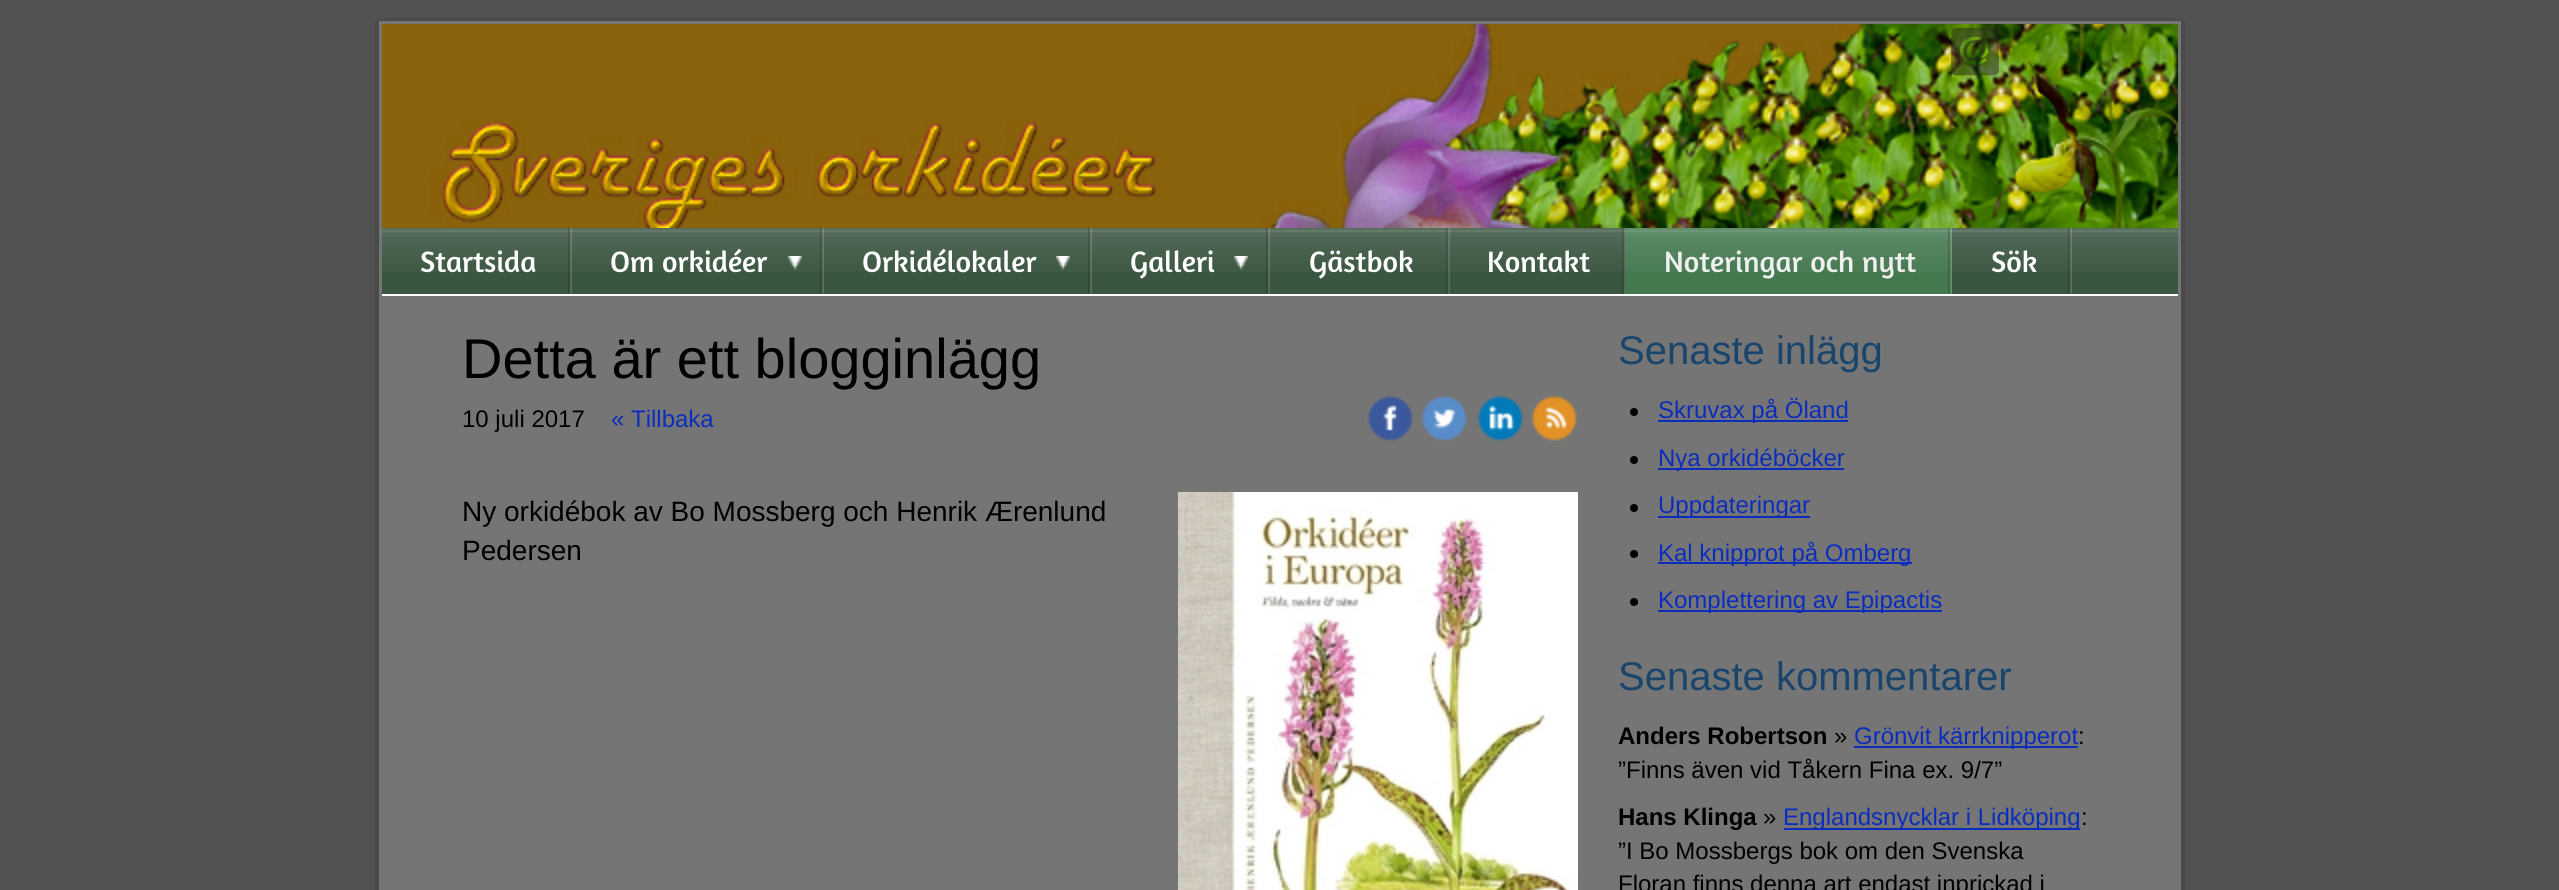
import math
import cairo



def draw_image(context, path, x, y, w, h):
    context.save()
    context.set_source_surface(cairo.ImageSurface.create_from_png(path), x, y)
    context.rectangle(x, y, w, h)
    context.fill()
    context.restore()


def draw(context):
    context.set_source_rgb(82 / 255, 82 / 255, 82 / 255)
    context.paint()
    draw_image(context, "images/1.png", 377, 17, 1806, 7)
    draw_image(context, "images/2.png", 374, 22, 1812, 868)
    context.set_source_rgb(117 / 255, 117 / 255, 117 / 255)
    context.rectangle(380, 22, 1800, 868)
    context.fill()
    draw_image(context, "images/3.png", 382, 24, 1796, 204)
    draw_image(context, "images/4.png", 1951, 27, 48, 49)
    context.set_source_rgb(58 / 255, 85 / 255, 64 / 255)
    context.rectangle(1952, 228, 226, 66)
    context.fill()
    draw_image(context, "images/5.png", 2072, 228, 106, 44)
    context.set_source_rgb(1, 1, 1)
    context.rectangle(382, 294, 1796, 2)
    context.fill()
    context.set_source_rgb(58 / 255, 85 / 255, 64 / 255)
    context.rectangle(382, 228, 1244, 66)
    context.fill()
    draw_image(context, "images/6.png", 382, 228, 190, 44)
    draw_image(context, "images/7.png", 568, 228, 4, 66)
    draw_image(context, "images/8.png", 572, 228, 252, 44)
    draw_image(context, "images/7.png", 820, 228, 4, 66)
    draw_image(context, "images/9.png", 788, 256, 14, 14)
    draw_image(context, "images/10.png", 824, 228, 268, 44)
    draw_image(context, "images/7.png", 1088, 228, 4, 66)
    draw_image(context, "images/9.png", 1056, 256, 14, 14)
    draw_image(context, "images/11.png", 1092, 228, 178, 44)
    draw_image(context, "images/7.png", 1266, 228, 4, 66)
    draw_image(context, "images/9.png", 1234, 256, 14, 14)
    draw_image(context, "images/12.png", 1270, 228, 180, 44)
    draw_image(context, "images/7.png", 1446, 228, 4, 66)
    draw_image(context, "images/13.png", 1450, 228, 176, 44)
    draw_image(context, "images/7.png", 1622, 228, 4, 66)
    context.set_source_rgb(68 / 255, 121 / 255, 80 / 255)
    context.rectangle(1626, 228, 326, 66)
    context.fill()
    draw_image(context, "images/14.png", 1626, 228, 326, 44)
    draw_image(context, "images/15.png", 1948, 228, 4, 66)
    draw_image(context, "images/16.png", 1952, 228, 120, 44)
    draw_image(context, "images/7.png", 2068, 228, 4, 66)
    draw_image(context, "images/17.png", 1367, 395, 46, 46)
    draw_image(context, "images/18.png", 1421, 395, 46, 46)
    draw_image(context, "images/19.png", 1477, 395, 46, 46)
    draw_image(context, "images/20.png", 1531, 395, 46, 46)
    draw_image(context, "images/21.png", 1178, 492, 400, 398)
    context.set_source_rgb(0, 0, 0)
    context.arc(1634, 412, 4, 0, 2 * math.pi)
    context.fill()
    context.set_source_rgb(11 / 255, 45 / 255, 188 / 255)
    context.rectangle(1658, 420, 190, 2)
    context.fill()
    context.set_source_rgb(0, 0, 0)
    context.arc(1634, 460, 4, 0, 2 * math.pi)
    context.fill()
    context.set_source_rgb(11 / 255, 45 / 255, 188 / 255)
    context.rectangle(1658, 468, 186, 2)
    context.fill()
    context.set_source_rgb(0, 0, 0)
    context.arc(1634, 508, 4, 0, 2 * math.pi)
    context.fill()
    context.set_source_rgb(11 / 255, 45 / 255, 188 / 255)
    context.rectangle(1658, 516, 152, 2)
    context.fill()
    context.set_source_rgb(0, 0, 0)
    context.arc(1634, 554, 4, 0, 2 * math.pi)
    context.fill()
    context.set_source_rgb(11 / 255, 45 / 255, 188 / 255)
    context.rectangle(1658, 562, 254, 2)
    context.fill()
    context.set_source_rgb(0, 0, 0)
    context.arc(1634, 602, 4, 0, 2 * math.pi)
    context.fill()
    context.set_source_rgb(11 / 255, 45 / 255, 188 / 255)
    context.rectangle(1658, 610, 284, 2)
    context.fill()
    context.rectangle(1854, 746, 224, 2)
    context.fill()
    context.rectangle(1784, 828, 296, 2)
    context.fill()
    context.select_font_face("Amaranth")
    context.set_font_size(30)
    context.set_source_rgb(1, 1, 1)
    context.move_to(420, 272)
    context.show_text("Startsida")
    context.move_to(610, 272)
    context.show_text("Om orkidéer")
    context.move_to(862, 272)
    context.show_text("Orkidélokaler")
    context.move_to(1130, 272)
    context.show_text("Galleri")
    context.move_to(1309, 272)
    context.show_text("Gästbok")
    context.move_to(1487, 272)
    context.show_text("Kontakt")
    context.set_source_rgb(240 / 255, 239 / 255, 239 / 255)
    context.move_to(1664, 272)
    context.show_text("Noteringar och nytt")
    context.set_source_rgb(1, 1, 1)
    context.move_to(1991, 272)
    context.show_text("Sök")
    context.select_font_face("Liberation Sans")
    context.set_font_size(56)
    context.set_source_rgb(0, 0, 0)
    context.move_to(462, 378)
    context.show_text("Detta är ett blogginlägg")
    context.set_font_size(24)
    context.move_to(462, 427)
    context.show_text("10 juli 2017")
    context.set_source_rgb(11 / 255, 45 / 255, 188 / 255)
    context.move_to(611, 427)
    context.show_text("« Tillbaka")
    context.set_font_size(28)
    context.set_source_rgb(0, 0, 0)
    context.move_to(462, 521)
    context.show_text("Ny orkidébok av Bo Mossberg och Henrik Ærenlund")
    context.move_to(462, 560)
    context.show_text("Pedersen")
    context.set_font_size(40)
    context.set_source_rgb(25 / 255, 69 / 255, 108 / 255)
    context.move_to(1618, 364)
    context.show_text("Senaste inlägg")
    context.set_font_size(24)
    context.set_source_rgb(11 / 255, 45 / 255, 188 / 255)
    context.move_to(1658, 418)
    context.show_text("Skruvax på Öland")
    context.move_to(1658, 466)
    context.show_text("Nya orkidéböcker")
    context.move_to(1658, 513)
    context.show_text("Uppdateringar")
    context.move_to(1658, 561)
    context.show_text("Kal knipprot på Omberg")
    context.move_to(1658, 608)
    context.show_text("Komplettering av Epipactis")
    context.set_font_size(40)
    context.set_source_rgb(25 / 255, 69 / 255, 108 / 255)
    context.move_to(1618, 690)
    context.show_text("Senaste kommentarer")
    context.select_font_face("Liberation Sans", cairo.FontSlant.NORMAL, cairo.FontWeight.BOLD)
    context.set_font_size(24)
    context.set_source_rgb(0, 0, 0)
    context.move_to(1618, 744)
    context.show_text("Anders Robertson")
    context.select_font_face("Liberation Sans")
    context.move_to(1834, 744)
    context.show_text("»")
    context.set_source_rgb(11 / 255, 45 / 255, 188 / 255)
    context.move_to(1854, 744)
    context.show_text("Grönvit kärrknipperot")
    context.set_source_rgb(0, 0, 0)
    context.move_to(2078, 744)
    context.show_text(":")
    context.move_to(1618, 778)
    context.show_text("”Finns även vid Tåkern Fina ex. 9/7”")
    context.select_font_face("Liberation Sans", cairo.FontSlant.NORMAL, cairo.FontWeight.BOLD)
    context.move_to(1618, 825)
    context.show_text("Hans Klinga")
    context.select_font_face("Liberation Sans")
    context.move_to(1763, 825)
    context.show_text("»")
    context.set_source_rgb(11 / 255, 45 / 255, 188 / 255)
    context.move_to(1783, 825)
    context.show_text("Englandsnycklar i Lidköping")
    context.set_source_rgb(0, 0, 0)
    context.move_to(2081, 825)
    context.show_text(":")
    context.move_to(1618, 859)
    context.show_text("”I Bo Mossbergs bok om den Svenska")
    context.move_to(1618, 892)
    context.show_text("Floran finns denna art endast inprickad i")


surface = cairo.ImageSurface(cairo.Format.RGB24, 2559, 890)
context = cairo.Context(surface)
options = cairo.FontOptions()
options.set_hint_metrics(cairo.HintMetrics.OFF)
options.set_hint_style(cairo.HintStyle.NONE)
context.set_font_options(options)
context.set_miter_limit(4)
draw(context)
surface.write_to_png("out.png")
